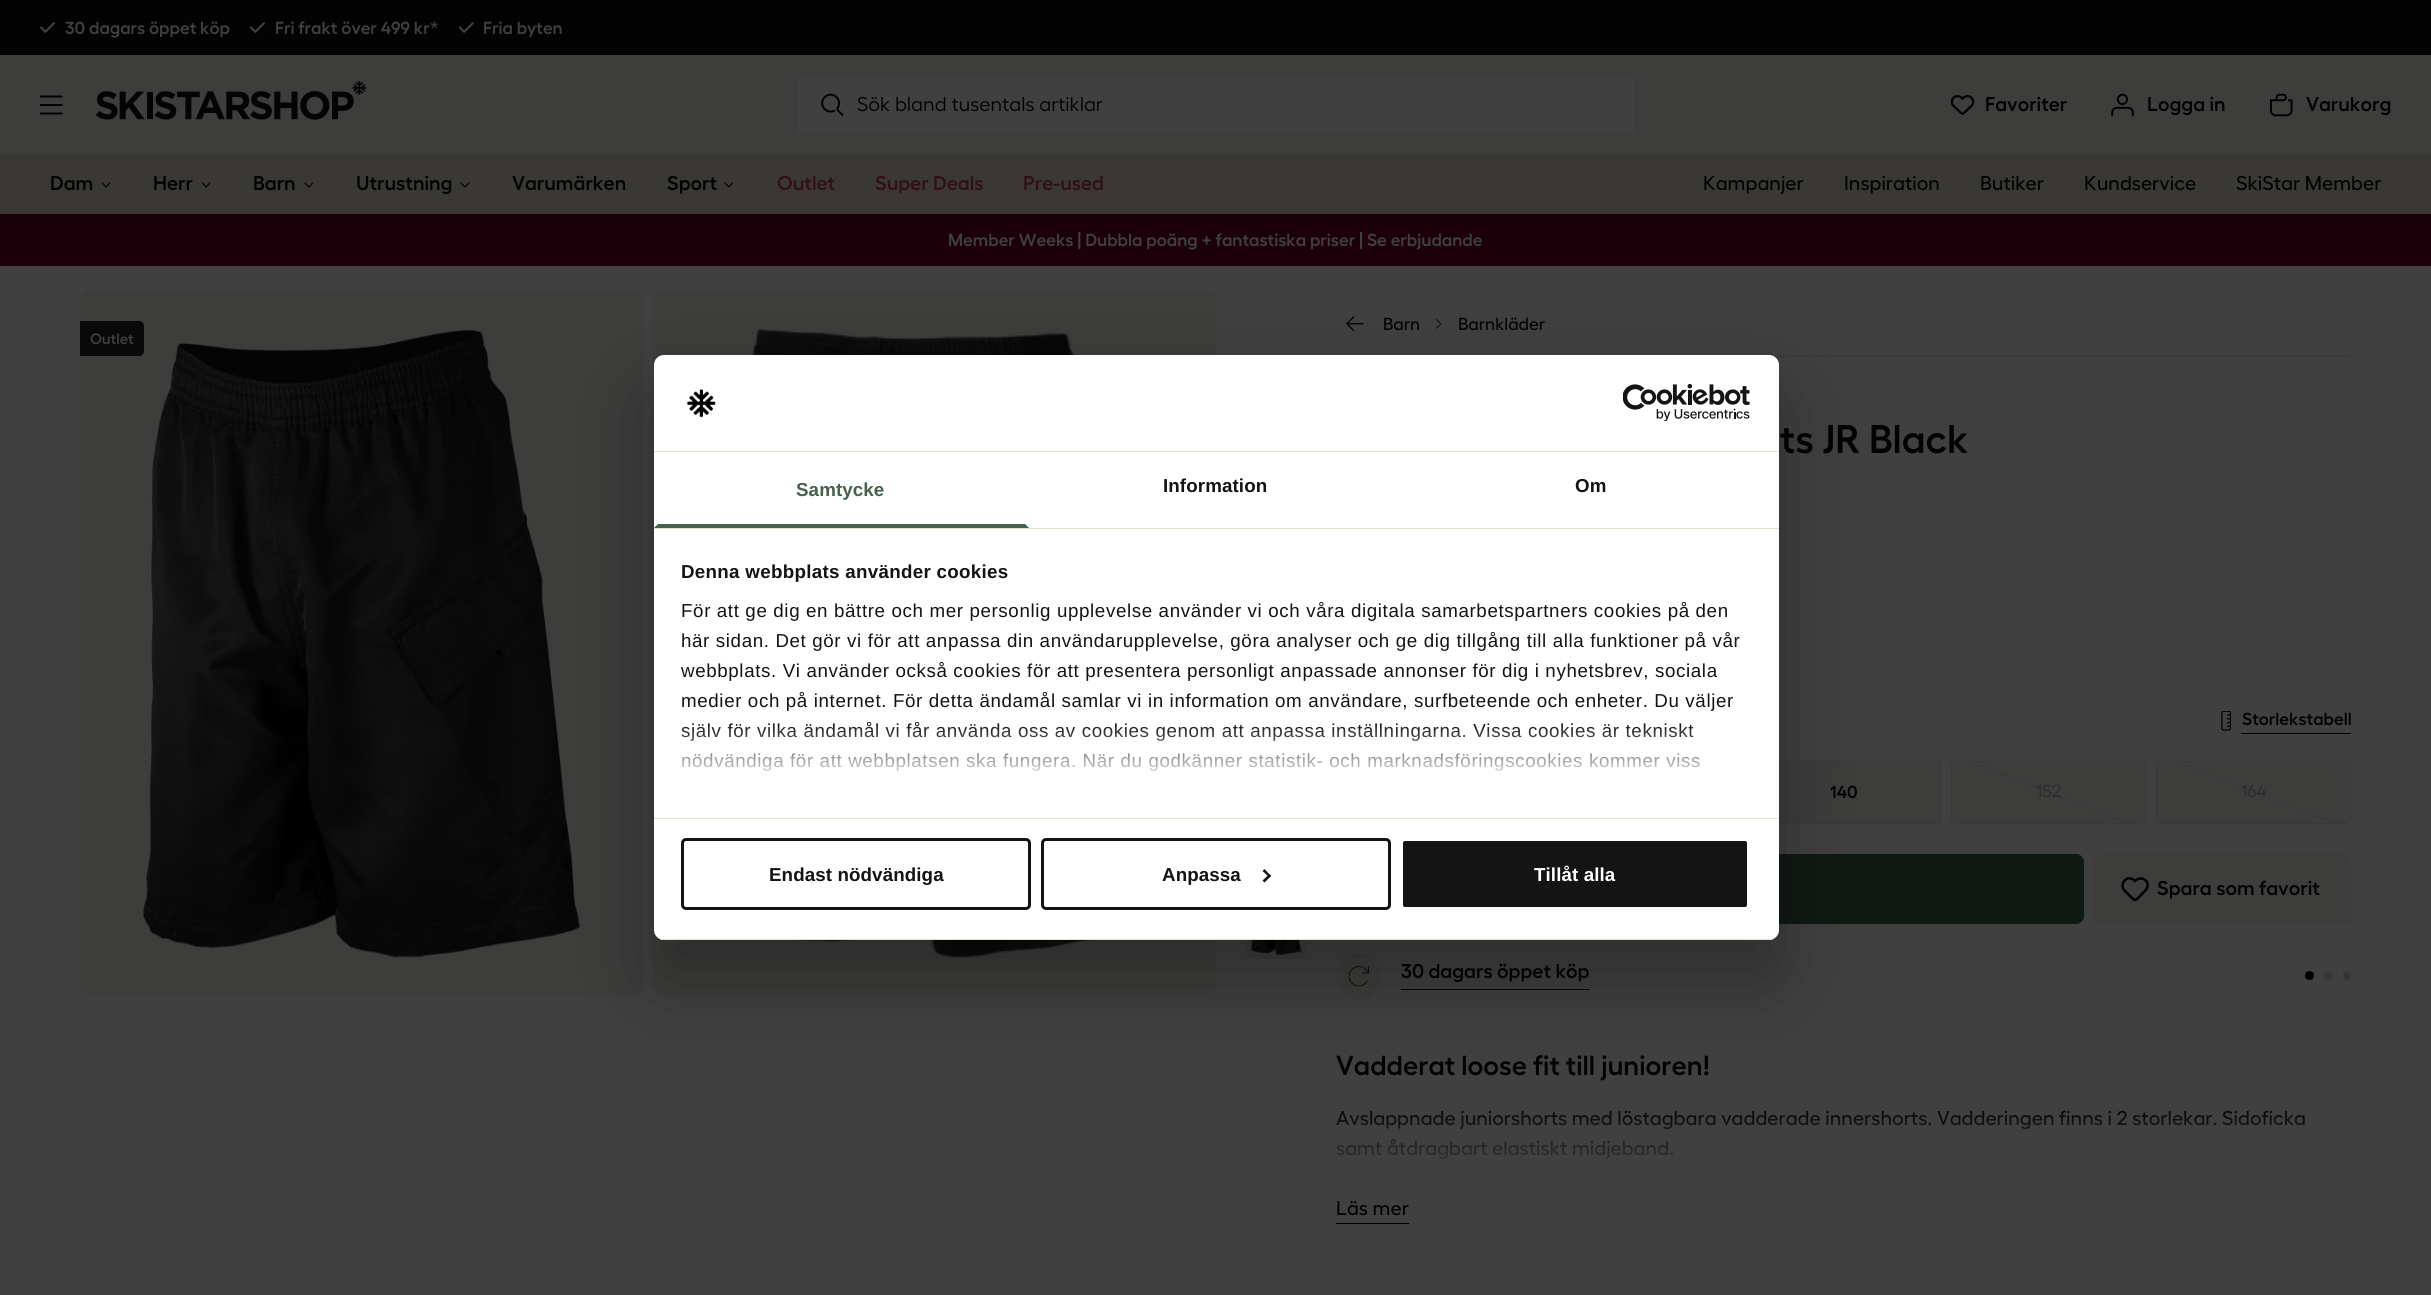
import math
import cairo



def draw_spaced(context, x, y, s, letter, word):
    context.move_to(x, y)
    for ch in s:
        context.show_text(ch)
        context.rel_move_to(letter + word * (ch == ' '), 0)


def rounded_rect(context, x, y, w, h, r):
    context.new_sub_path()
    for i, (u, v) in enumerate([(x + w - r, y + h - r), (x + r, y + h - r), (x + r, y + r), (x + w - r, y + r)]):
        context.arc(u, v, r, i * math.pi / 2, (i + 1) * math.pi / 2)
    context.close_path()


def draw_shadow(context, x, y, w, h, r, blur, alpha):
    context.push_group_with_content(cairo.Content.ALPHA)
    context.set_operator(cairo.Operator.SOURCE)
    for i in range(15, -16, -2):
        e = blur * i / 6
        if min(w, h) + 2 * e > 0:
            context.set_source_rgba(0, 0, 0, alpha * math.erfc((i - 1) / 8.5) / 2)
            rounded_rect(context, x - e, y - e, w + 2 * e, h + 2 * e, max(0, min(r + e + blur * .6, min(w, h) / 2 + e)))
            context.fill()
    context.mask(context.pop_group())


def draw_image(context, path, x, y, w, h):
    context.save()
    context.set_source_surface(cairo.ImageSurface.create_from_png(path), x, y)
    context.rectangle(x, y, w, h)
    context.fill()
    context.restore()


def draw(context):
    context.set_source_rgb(64 / 255, 64 / 255, 64 / 255)
    context.paint()
    context.set_source_rgb(3 / 255, 3 / 255, 3 / 255)
    context.rectangle(0, 0, 2431, 55)
    context.fill()
    draw_image(context, "images/1.png", 40, 22, 15, 11)
    draw_image(context, "images/1.png", 250, 22, 15, 11)
    draw_image(context, "images/2.png", 459, 22, 15, 11)
    context.set_source_rgb(57 / 255, 56 / 255, 53 / 255)
    context.rectangle(0, 154, 2431, 60)
    context.fill()
    context.set_source_rgb(61 / 255, 61 / 255, 60 / 255)
    context.rectangle(0, 55, 2431, 98)
    context.fill()
    context.set_source_rgb(60 / 255, 60 / 255, 60 / 255)
    context.rectangle(0, 153, 2431, 1)
    context.fill()
    context.new_path()
    context.move_to(62.5, 96.5)
    context.line_to(40, 96.5)
    context.move_to(62.5, 105)
    context.line_to(40, 105)
    context.move_to(62.5, 113.5)
    context.line_to(40, 113.5)
    context.set_source_rgb(0, 0, 0)
    context.set_line_width(1.9)
    context.stroke()
    draw_image(context, "images/3.png", 95, 80, 272, 40)
    context.set_source_rgb(64 / 255, 64 / 255, 64 / 255)
    rounded_rect(context, 796.5, 75.5, 839, 59, 4.5)
    context.fill_preserve()
    context.set_source_rgb(60 / 255, 60 / 255, 60 / 255)
    context.set_line_width(1)
    context.stroke()
    draw_image(context, "images/4.png", 821, 93, 23, 24)
    draw_image(context, "images/5.png", 1950, 95, 25, 20)
    draw_image(context, "images/6.png", 2111, 93, 23, 24)
    draw_image(context, "images/7.png", 2270, 93, 23, 24)
    context.new_path()
    context.move_to(102.5, 183)
    context.line_to(106, 187)
    context.line_to(110, 183)
    context.set_source_rgb(4 / 255, 4 / 255, 4 / 255)
    context.set_line_width(1.2)
    context.set_line_cap(cairo.LineCap.ROUND)
    context.set_line_join(cairo.LineJoin.ROUND)
    context.stroke()
    context.new_path()
    context.move_to(202.5, 183)
    context.line_to(206, 187)
    context.line_to(210, 183)
    context.stroke()
    context.new_path()
    context.move_to(305, 183)
    context.line_to(309, 187)
    context.line_to(312.5, 183)
    context.stroke()
    context.new_path()
    context.move_to(461, 183)
    context.line_to(465, 187)
    context.line_to(469, 183)
    context.stroke()
    context.new_path()
    context.move_to(725, 183)
    context.line_to(729, 187)
    context.line_to(732.5, 183)
    context.stroke()
    context.set_source_rgb(28 / 255, 1 / 255, 10 / 255)
    context.rectangle(0, 214, 2431, 52)
    context.fill()
    context.set_source_rgb(61 / 255, 61 / 255, 60 / 255)
    rounded_rect(context, 80, 291, 563, 704, 10)
    context.fill()
    draw_image(context, "images/8.png", 143, 330, 438, 628)
    rounded_rect(context, 653, 291, 563, 704, 10)
    context.fill()
    draw_image(context, "images/9.png", 752, 329, 342, 630)
    context.set_source_rgb(9 / 255, 9 / 255, 9 / 255)
    context.new_path()
    context.move_to(80, 321)
    context.line_to(139, 321)
    context.curve_to(142, 321, 144, 323, 144, 326)
    context.line_to(144, 351)
    context.curve_to(144, 354, 142, 356, 139, 356)
    context.line_to(80, 356)
    context.close_path()
    context.fill()
    context.set_source_rgb(61 / 255, 61 / 255, 60 / 255)
    rounded_rect(context, 1246, 884, 60, 75, 5)
    context.fill()
    draw_image(context, "images/10.png", 1251, 940, 51, 16)
    draw_image(context, "images/11.png", 1346, 316, 18, 15)
    context.new_path()
    context.move_to(1436.5, 328)
    context.line_to(1441, 324)
    context.line_to(1436.5, 319.5)
    context.set_source_rgb(29 / 255, 29 / 255, 29 / 255)
    context.set_line_width(1.5)
    context.stroke()
    context.set_source_rgb(56 / 255, 56 / 255, 52 / 255)
    context.rectangle(1773, 356, 578, 1)
    context.fill()
    draw_image(context, "images/12.png", 2221, 711, 10, 20)
    context.set_source_rgb(3 / 255, 3 / 255, 3 / 255)
    context.rectangle(2241, 733, 110, 1)
    context.fill()
    context.set_source_rgb(61 / 255, 61 / 255, 60 / 255)
    rounded_rect(context, 1746.5, 761.5, 194, 62, 4.5)
    context.fill_preserve()
    context.set_source_rgb(57 / 255, 57 / 255, 57 / 255)
    context.set_line_width(1)
    context.set_line_cap(cairo.LineCap.BUTT)
    context.set_line_join(cairo.LineJoin.MITER)
    context.stroke()
    context.set_source_rgb(61 / 255, 61 / 255, 60 / 255)
    rounded_rect(context, 1951.5, 761.5, 194, 62, 4.5)
    context.fill_preserve()
    context.set_source_rgb(57 / 255, 57 / 255, 57 / 255)
    context.stroke()
    context.new_path()
    context.move_to(2128, 823)
    context.line_to(1971, 763)
    context.line_to(1975, 763)
    context.line_to(2131, 823)
    context.close_path()
    context.fill()
    context.set_source_rgb(61 / 255, 61 / 255, 60 / 255)
    rounded_rect(context, 2156.5, 761.5, 194, 62, 4.5)
    context.fill_preserve()
    context.set_source_rgb(57 / 255, 57 / 255, 57 / 255)
    context.stroke()
    context.new_path()
    context.move_to(2333, 823)
    context.line_to(2177, 763)
    context.line_to(2180, 763)
    context.line_to(2336, 823)
    context.close_path()
    context.fill()
    context.set_source_rgb(17 / 255, 25 / 255, 19 / 255)
    rounded_rect(context, 1336, 854, 748, 70, 8)
    context.fill()
    context.set_source_rgb(61 / 255, 61 / 255, 60 / 255)
    rounded_rect(context, 2094, 854, 257, 70, 8)
    context.fill()
    context.new_path()
    context.move_to(2125, 891)
    context.line_to(2132, 898)
    context.curve_to(2135, 900.5, 2135, 900.5, 2138, 898)
    context.line_to(2141, 895)
    context.curve_to(2142.5, 893, 2145, 891.5, 2146.5, 889)
    context.curve_to(2151, 881.5, 2141.5, 874.5, 2135, 881)
    context.curve_to(2127.5, 873, 2118, 884.5, 2125, 891)
    context.close_path()
    context.set_source_rgb(0, 0, 0)
    context.set_line_width(2.5)
    context.stroke()
    context.set_source_rgb(61 / 255, 61 / 255, 60 / 255)
    context.arc(1358.5, 976.5, 22.5, 0, 2 * math.pi)
    context.fill()
    draw_image(context, "images/13.png", 1348, 966, 21, 21)
    context.set_source_rgb(0, 0, 0)
    context.rectangle(1401, 989, 188, 1)
    context.fill()
    context.arc(2309.5, 975.5, 4.5, 0, 2 * math.pi)
    context.fill()
    context.set_source_rgb(54 / 255, 54 / 255, 54 / 255)
    context.arc(2328.5, 975.5, 4.5, 0, 2 * math.pi)
    context.fill()
    rounded_rect(context, 2343, 971, 8, 9, 4)
    context.fill()
    context.set_source_rgb(0, 0, 0)
    context.rectangle(1336, 1223, 73, 1)
    context.fill()
    context.set_source_rgb(0, 0, 0)
    draw_shadow(context, 654, 395, 1125, 585, 10, 42.5, 0.3)
    context.set_source_rgb(1, 1, 1)
    rounded_rect(context, 654, 355, 1125, 585, 10)
    context.fill()
    context.set_source_rgb(225 / 255, 225 / 255, 209 / 255)
    context.rectangle(654, 451, 1125, 1)
    context.fill()
    draw_image(context, "images/14.png", 687, 389, 29, 29)
    draw_image(context, "images/15.png", 1623, 384, 127, 37)
    context.rectangle(654, 528, 1125, 1)
    context.fill()
    context.set_source_rgb(68 / 255, 98 / 255, 76 / 255)
    context.new_path()
    context.move_to(1029, 528)
    context.line_to(654, 528)
    context.line_to(658, 524)
    context.line_to(1025, 524)
    context.close_path()
    context.fill()
    context.set_source_rgb(225 / 255, 225 / 255, 209 / 255)
    context.rectangle(654, 818, 1125, 1)
    context.fill()
    context.save()
    rounded_rect(context, 654, 355, 1125, 585, 10)
    context.clip()
    context.rectangle(654, 939, 1125, 1)
    context.fill()
    context.restore()
    rounded_rect(context, 682.5, 839.5, 347, 69, 3.5)
    context.set_source_rgb(20 / 255, 20 / 255, 20 / 255)
    context.set_line_width(3)
    context.stroke()
    rounded_rect(context, 1042.5, 839.5, 347, 69, 3.5)
    context.stroke()
    context.new_path()
    context.move_to(1264.5, 869)
    context.line_to(1271, 876)
    context.line_to(1269.5, 877.5)
    context.line_to(1262.5, 871)
    context.close_path()
    context.fill()
    context.new_path()
    context.move_to(1269.5, 874)
    context.line_to(1271, 876)
    context.line_to(1264.5, 882.5)
    context.line_to(1262.5, 880.5)
    context.close_path()
    context.fill()
    rounded_rect(context, 1401.5, 839.5, 347, 69, 3.5)
    context.fill_preserve()
    context.set_source_rgb(1, 1, 1)
    context.stroke()
    context.select_font_face("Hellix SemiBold")
    context.set_font_size(17.5)
    context.set_source_rgb(64 / 255, 64 / 255, 64 / 255)
    context.move_to(65, 34)
    context.show_text("30 dagars öppet köp")
    context.move_to(275, 34)
    context.show_text("Fri frakt över 499 kr*")
    context.move_to(483, 34)
    context.show_text("Fria byten")
    context.select_font_face("Hellix")
    context.set_font_size(20)
    context.set_source_rgb(3 / 255, 3 / 255, 3 / 255)
    context.move_to(857, 111)
    context.show_text("Sök bland tusentals artiklar")
    context.select_font_face("Hellix SemiBold")
    context.move_to(1985, 111)
    context.show_text("Favoriter")
    context.move_to(2147, 111)
    context.show_text("Logga in")
    context.move_to(2306, 111)
    context.show_text("Varukorg")
    context.move_to(50, 190)
    context.show_text("Dam")
    context.move_to(153, 190)
    context.show_text("Herr")
    context.move_to(253, 190)
    context.show_text("Barn")
    context.move_to(356, 190)
    context.show_text("Utrustning")
    context.move_to(512, 190)
    context.show_text("Varumärken")
    context.move_to(667, 190)
    context.show_text("Sport")
    context.set_source_rgb(50 / 255, 15 / 255, 22 / 255)
    context.move_to(777, 190)
    context.show_text("Outlet")
    context.move_to(875, 190)
    context.show_text("Super Deals")
    context.move_to(1023, 190)
    context.show_text("Pre-used")
    context.select_font_face("Hellix Medium")
    context.set_source_rgb(3 / 255, 3 / 255, 3 / 255)
    context.move_to(1703, 190)
    context.show_text("Kampanjer")
    context.move_to(1844, 190)
    context.show_text("Inspiration")
    context.move_to(1980, 190)
    context.show_text("Butiker")
    context.move_to(2084, 190)
    context.show_text("Kundservice")
    context.move_to(2236, 190)
    context.show_text("SkiStar Member")
    context.select_font_face("Hellix SemiBold")
    context.set_font_size(17.5)
    context.set_source_rgb(64 / 255, 64 / 255, 64 / 255)
    context.move_to(948, 246)
    context.show_text("Member Weeks | Dubbla poäng + fantastiska priser | Se erbjudande")
    context.set_font_size(15)
    context.move_to(90, 344)
    context.show_text("Outlet")
    context.select_font_face("Hellix Medium")
    context.set_font_size(17.5)
    context.set_source_rgb(3 / 255, 3 / 255, 3 / 255)
    context.move_to(1383, 330)
    context.show_text("Barn")
    context.move_to(1458, 330)
    context.show_text("Barnkläder")
    context.select_font_face("Hellix SemiBold")
    context.set_font_size(40)
    context.move_to(1780, 453)
    context.show_text("ts JR Black")
    context.set_font_size(17.5)
    context.move_to(2242, 725)
    context.show_text("Storlekstabell")
    context.move_to(1830, 798)
    context.show_text("140")
    context.select_font_face("Hellix")
    context.set_source_rgb(43 / 255, 43 / 255, 43 / 255)
    context.move_to(2036, 797)
    context.show_text("152")
    context.move_to(2241, 797)
    context.show_text("164")
    context.select_font_face("Hellix SemiBold")
    context.set_font_size(20)
    context.set_source_rgb(3 / 255, 3 / 255, 3 / 255)
    context.move_to(2157, 895)
    context.show_text("Spara som favorit")
    context.move_to(1401, 978)
    context.show_text("30 dagars öppet köp")
    context.set_font_size(27.5)
    context.move_to(1336, 1075)
    context.show_text("Vadderat loose fit till junioren!")
    context.select_font_face("Hellix Medium")
    context.set_font_size(20)
    context.move_to(1336, 1125)
    context.show_text("Avslappnade juniorshorts med löstagbara vadderade innershorts. Vadderingen finns i 2 storlekar. Sidoficka")
    context.move_to(1336, 1155)
    context.show_text("samt åtdragbart elastiskt midjeband.")
    gradient = cairo.LinearGradient(1844, 1164, 1844, 1104)
    gradient.add_color_stop_rgba(0, 64 / 255, 64 / 255, 64 / 255, 0.8)
    gradient.add_color_stop_rgba(1, 64 / 255, 64 / 255, 64 / 255, 0)
    context.set_source(gradient)
    context.rectangle(1336, 1111, 969, 49)
    context.fill()
    context.set_source_rgb(3 / 255, 3 / 255, 3 / 255)
    context.move_to(1336, 1215)
    context.show_text("Läs mer")
    context.select_font_face("Liberation Sans", cairo.FontSlant.NORMAL, cairo.FontWeight.BOLD)
    context.set_font_size(18.75)
    context.set_source_rgb(68 / 255, 98 / 255, 76 / 255)
    draw_spaced(context, 796, 496, "Samtycke", 0.1, 0)
    context.set_source_rgb(20 / 255, 20 / 255, 20 / 255)
    draw_spaced(context, 1163, 492, "Information", 0.1, 0)
    draw_spaced(context, 1575, 492, "Om", 0.1, 0)
    draw_spaced(context, 681, 578, "Denna webbplats använder cookies", 0.3, 0)
    context.select_font_face("Liberation Sans")
    draw_spaced(context, 681, 617, "För att ge dig en bättre och mer personlig upplevelse använder vi och våra digitala samarbetspartners cookies på den", 0.62, 0)
    draw_spaced(context, 681, 647, "här sidan. Det gör vi för att anpassa din användarupplevelse, göra analyser och ge dig tillgång till alla funktioner på vår", 0.62, 0)
    draw_spaced(context, 681, 677, "webbplats. Vi använder också cookies för att presentera personligt anpassade annonser för dig i nyhetsbrev, sociala", 0.62, 0)
    draw_spaced(context, 681, 707, "medier och på internet. För detta ändamål samlar vi in information om användare, surfbeteende och enheter. Du väljer", 0.62, 0)
    draw_spaced(context, 681, 737, "själv för vilka ändamål vi får använda oss av cookies genom att anpassa inställningarna. Vissa cookies är tekniskt", 0.62, 0)
    draw_spaced(context, 681, 767, "nödvändiga för att webbplatsen ska fungera. När du godkänner statistik- och marknadsföringscookies kommer viss", 0.62, 0)
    gradient = cairo.LinearGradient(1203, 818, 1203, 724)
    gradient.add_color_stop_rgba(0, 1, 1, 1, 1)
    gradient.add_color_stop_rgba(0.5, 1, 1, 1, 0.8)
    gradient.add_color_stop_rgba(1, 1, 1, 1, 0)
    context.set_source(gradient)
    context.rectangle(682, 725, 1019, 46)
    context.fill()
    context.select_font_face("Liberation Sans", cairo.FontSlant.NORMAL, cairo.FontWeight.BOLD)
    context.set_source_rgb(20 / 255, 20 / 255, 20 / 255)
    draw_spaced(context, 769, 881, "Endast nödvändiga", 0.1, 0)
    draw_spaced(context, 1162, 881, "Anpassa", 0.1, 0)
    context.set_source_rgb(1, 1, 1)
    draw_spaced(context, 1534, 881, "Tillåt alla", 0.1, 0)


surface = cairo.ImageSurface(cairo.Format.RGB24, 2431, 1295)
context = cairo.Context(surface)
options = cairo.FontOptions()
options.set_hint_metrics(cairo.HintMetrics.OFF)
options.set_hint_style(cairo.HintStyle.NONE)
context.set_font_options(options)
context.set_miter_limit(4)
draw(context)
surface.write_to_png("out.png")
